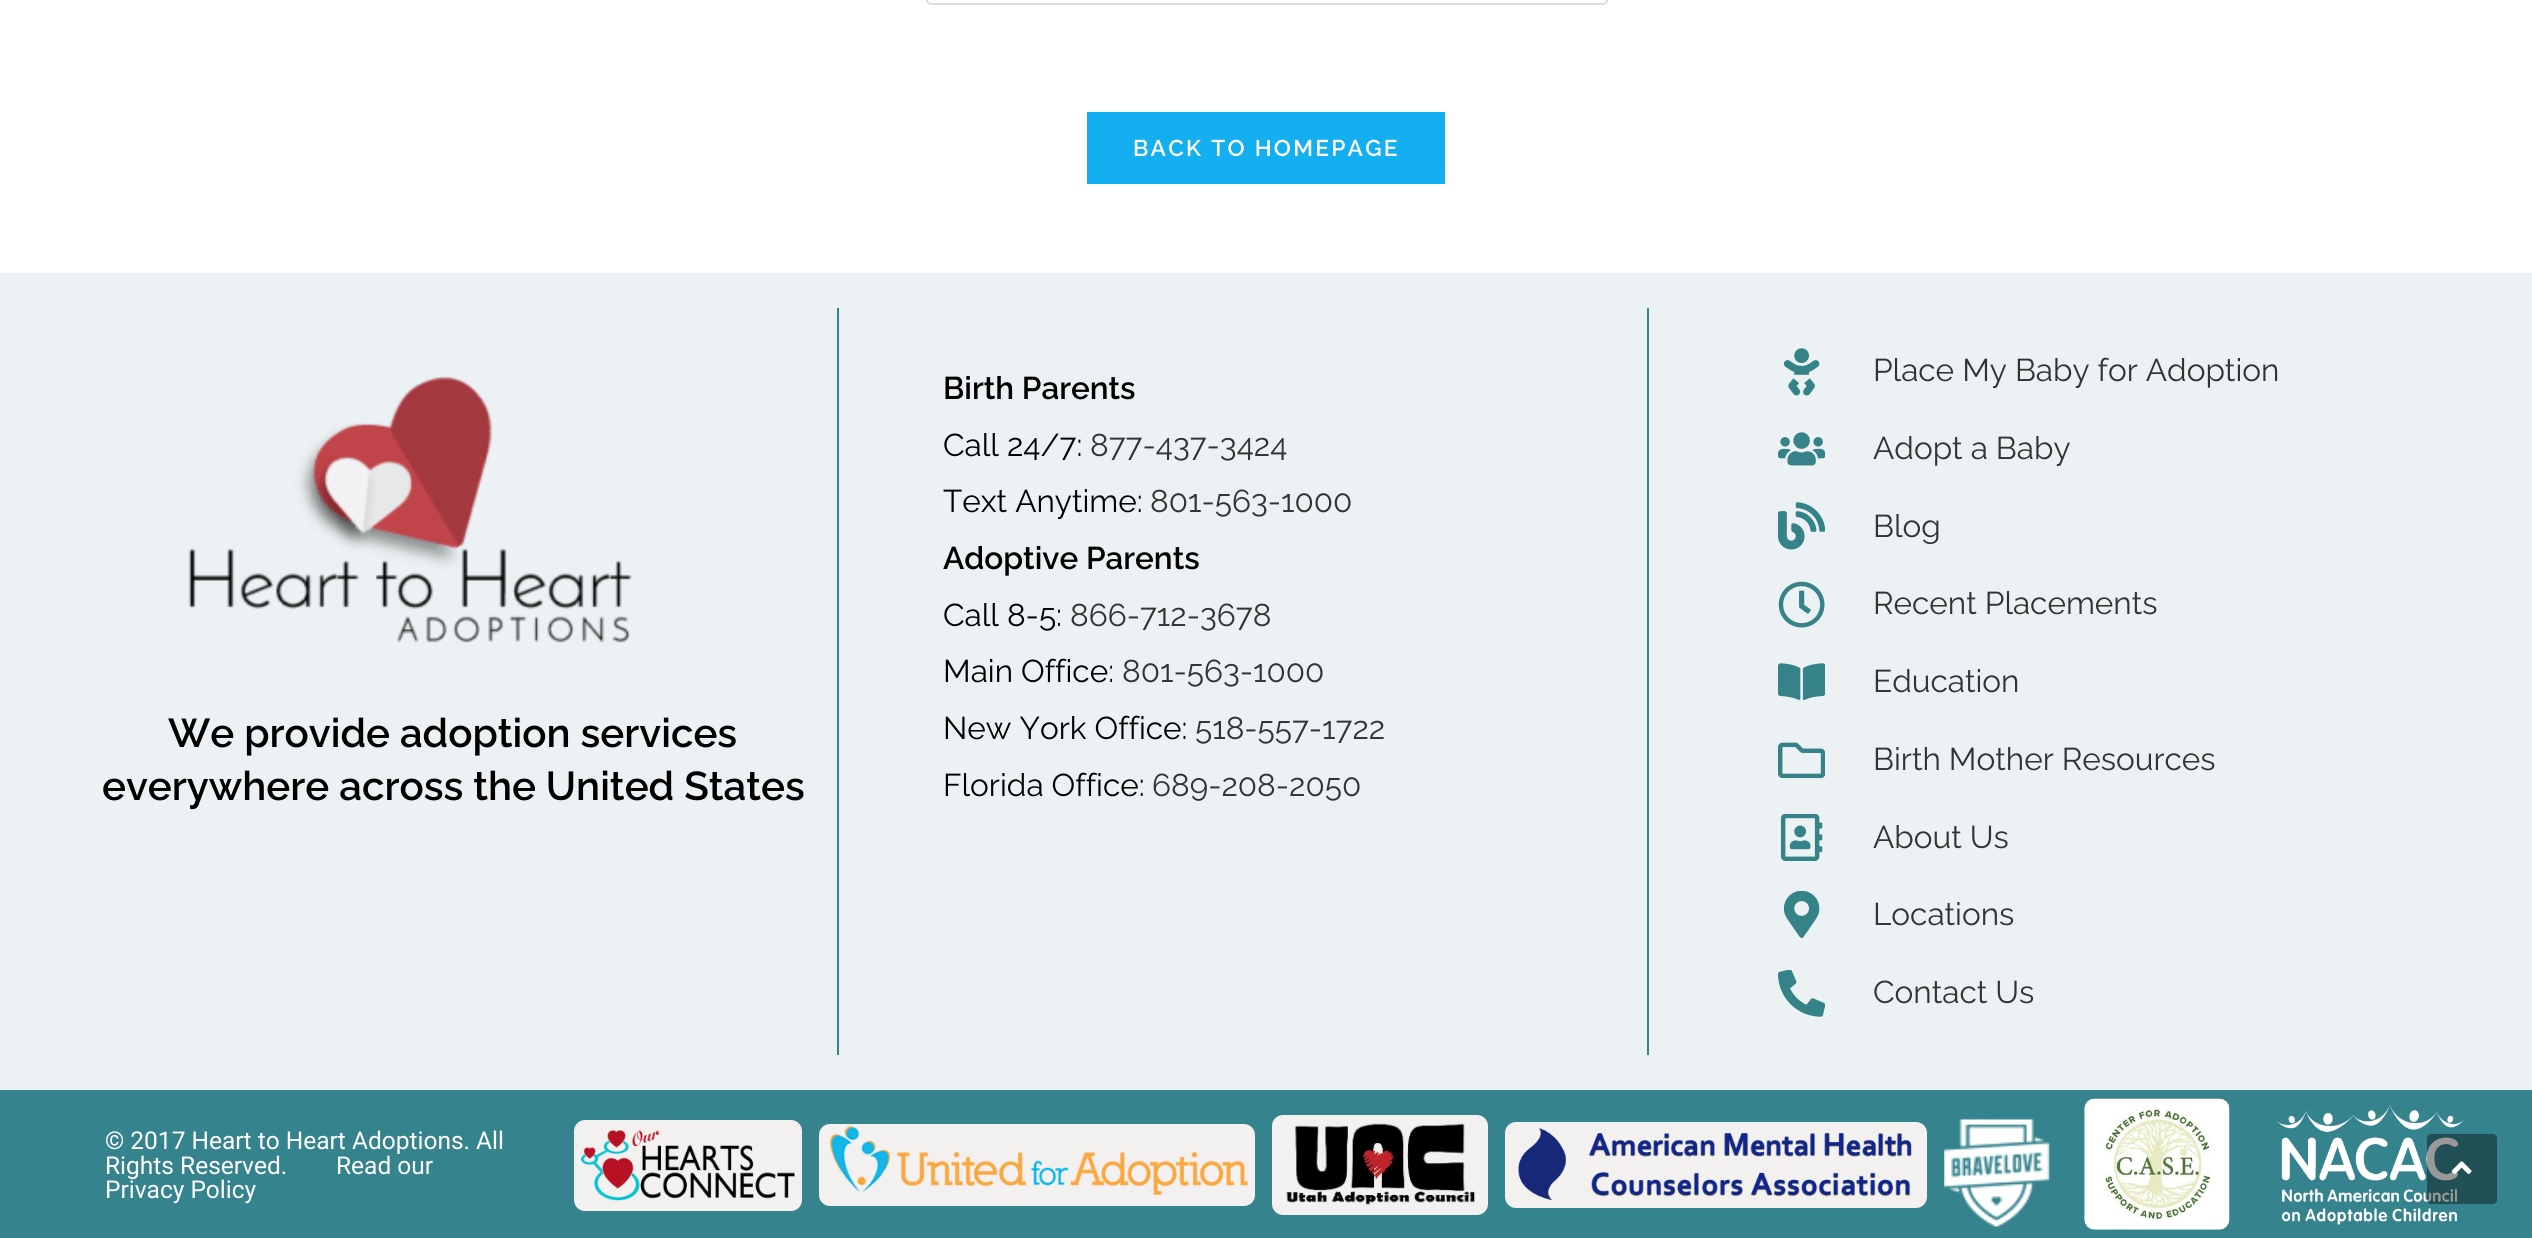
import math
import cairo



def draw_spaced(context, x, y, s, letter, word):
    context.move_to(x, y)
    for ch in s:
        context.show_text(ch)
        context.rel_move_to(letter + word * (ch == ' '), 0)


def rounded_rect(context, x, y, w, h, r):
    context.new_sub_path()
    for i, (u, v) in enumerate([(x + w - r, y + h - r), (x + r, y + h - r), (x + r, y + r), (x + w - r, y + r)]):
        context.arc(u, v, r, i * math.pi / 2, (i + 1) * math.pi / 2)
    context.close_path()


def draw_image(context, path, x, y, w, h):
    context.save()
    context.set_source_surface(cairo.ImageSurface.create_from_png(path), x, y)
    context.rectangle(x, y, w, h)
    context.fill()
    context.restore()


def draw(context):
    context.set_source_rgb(1, 1, 1)
    context.paint()
    rounded_rect(context, 927, -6, 680, 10, 4)
    context.set_source_rgb(221 / 255, 221 / 255, 221 / 255)
    context.stroke()
    context.set_source_rgb(19 / 255, 175 / 255, 240 / 255)
    context.rectangle(1087, 112, 358, 72)
    context.fill()
    context.set_source_rgb(236 / 255, 242 / 255, 243 / 255)
    context.rectangle(0, 273, 2532, 817)
    context.fill()
    context.set_source_rgb(54 / 255, 131 / 255, 140 / 255)
    context.rectangle(837, 308, 2, 747)
    context.fill()
    draw_image(context, "images/1.png", 188, 376, 444, 267)
    context.rectangle(1647, 308, 2, 747)
    context.fill()
    draw_image(context, "images/2.png", 1783, 348, 37, 48)
    draw_image(context, "images/3.png", 1778, 432, 47, 34)
    draw_image(context, "images/4.png", 1778, 502, 47, 48)
    draw_image(context, "images/5.png", 1778, 581, 47, 47)
    draw_image(context, "images/6.png", 1778, 663, 47, 37)
    draw_image(context, "images/7.png", 1778, 742, 47, 37)
    draw_image(context, "images/8.png", 1780, 814, 43, 47)
    draw_image(context, "images/9.png", 1783, 891, 37, 47)
    draw_image(context, "images/10.png", 1778, 970, 47, 47)
    context.set_source_rgb(53 / 255, 131 / 255, 141 / 255)
    context.rectangle(0, 1090, 2532, 148)
    context.fill()
    context.set_source_rgb(242 / 255, 241 / 255, 239 / 255)
    rounded_rect(context, 574, 1120, 228, 91, 11)
    context.fill()
    draw_image(context, "images/11.png", 581, 1130, 214, 71)
    rounded_rect(context, 819, 1124, 436, 82, 11)
    context.fill()
    draw_image(context, "images/12.png", 829, 1125, 419, 70)
    rounded_rect(context, 1272, 1115, 216, 100, 11)
    context.fill()
    draw_image(context, "images/13.png", 1286, 1123, 189, 82)
    rounded_rect(context, 1505, 1122, 422, 86, 11)
    context.fill()
    draw_image(context, "images/14.png", 1518, 1128, 394, 72)
    draw_image(context, "images/15.png", 1944, 1118, 106, 110)
    draw_image(context, "images/16.png", 2084, 1098, 146, 132)
    draw_image(context, "images/17.png", 2276, 1105, 188, 120)
    context.set_source_rgba(0, 0, 0, 0.4)
    rounded_rect(context, 2427, 1134, 70, 70, 4)
    context.fill()
    draw_image(context, "images/18.png", 2451, 1161, 21, 13)
    context.select_font_face("Raleway SemiBold")
    context.set_font_size(22.75)
    context.set_source_rgb(1, 1, 1)
    draw_spaced(context, 1133, 156, "BACK TO HOMEPAGE", 2.25, 0)
    context.set_font_size(40.25)
    context.set_source_rgb(0, 0, 0)
    context.move_to(168, 747)
    context.show_text("We provide adoption services")
    context.move_to(102, 800)
    context.show_text("everywhere across the United States")
    context.set_font_size(31.5)
    context.move_to(943, 399)
    context.show_text("Birth Parents")
    context.select_font_face("Raleway")
    context.move_to(943, 456)
    context.show_text("Call 24/7:")
    context.set_source_rgb(51 / 255, 51 / 255, 51 / 255)
    context.move_to(1090, 456)
    context.show_text("877-437-3424")
    context.set_source_rgb(0, 0, 0)
    context.move_to(943, 512)
    context.show_text("Text Anytime:")
    context.set_source_rgb(51 / 255, 51 / 255, 51 / 255)
    context.move_to(1150, 512)
    context.show_text("801-563-1000")
    context.select_font_face("Raleway SemiBold")
    context.set_source_rgb(0, 0, 0)
    context.move_to(943, 569)
    context.show_text("Adoptive Parents")
    context.select_font_face("Raleway")
    context.move_to(943, 626)
    context.show_text("Call 8-5:")
    context.set_source_rgb(51 / 255, 51 / 255, 51 / 255)
    context.move_to(1070, 626)
    context.show_text("866-712-3678")
    context.set_source_rgb(0, 0, 0)
    context.move_to(943, 682)
    context.show_text("Main Office:")
    context.set_source_rgb(51 / 255, 51 / 255, 51 / 255)
    context.move_to(1122, 682)
    context.show_text("801-563-1000")
    context.set_source_rgb(0, 0, 0)
    context.move_to(943, 739)
    context.show_text("New York Office:")
    context.set_source_rgb(51 / 255, 51 / 255, 51 / 255)
    context.move_to(1195, 739)
    context.show_text("518-557-1722")
    context.set_source_rgb(0, 0, 0)
    context.move_to(943, 796)
    context.show_text("Florida Office:")
    context.set_source_rgb(51 / 255, 51 / 255, 51 / 255)
    context.move_to(1152, 796)
    context.show_text("689-208-2050")
    context.move_to(1873, 381)
    context.show_text("Place My Baby for Adoption")
    context.move_to(1873, 459)
    context.show_text("Adopt a Baby")
    context.move_to(1873, 537)
    context.show_text("Blog")
    context.move_to(1873, 614)
    context.show_text("Recent Placements")
    context.move_to(1873, 692)
    context.show_text("Education")
    context.move_to(1873, 770)
    context.show_text("Birth Mother Resources")
    context.move_to(1873, 848)
    context.show_text("About Us")
    context.move_to(1873, 925)
    context.show_text("Locations")
    context.move_to(1873, 1003)
    context.show_text("Contact Us")
    context.select_font_face("Roboto")
    context.set_font_size(24.5)
    context.set_source_rgb(1, 1, 1)
    context.move_to(105, 1149)
    context.show_text("© 2017 Heart to Heart Adoptions. All")
    context.move_to(105, 1174)
    context.show_text("Rights Reserved.")
    context.move_to(336, 1174)
    context.show_text("Read our")
    context.move_to(105, 1198)
    context.show_text("Privacy Policy")


surface = cairo.ImageSurface(cairo.Format.RGB24, 2532, 1238)
context = cairo.Context(surface)
options = cairo.FontOptions()
options.set_hint_metrics(cairo.HintMetrics.OFF)
options.set_hint_style(cairo.HintStyle.NONE)
context.set_font_options(options)
context.set_miter_limit(4)
draw(context)
surface.write_to_png("out.png")
